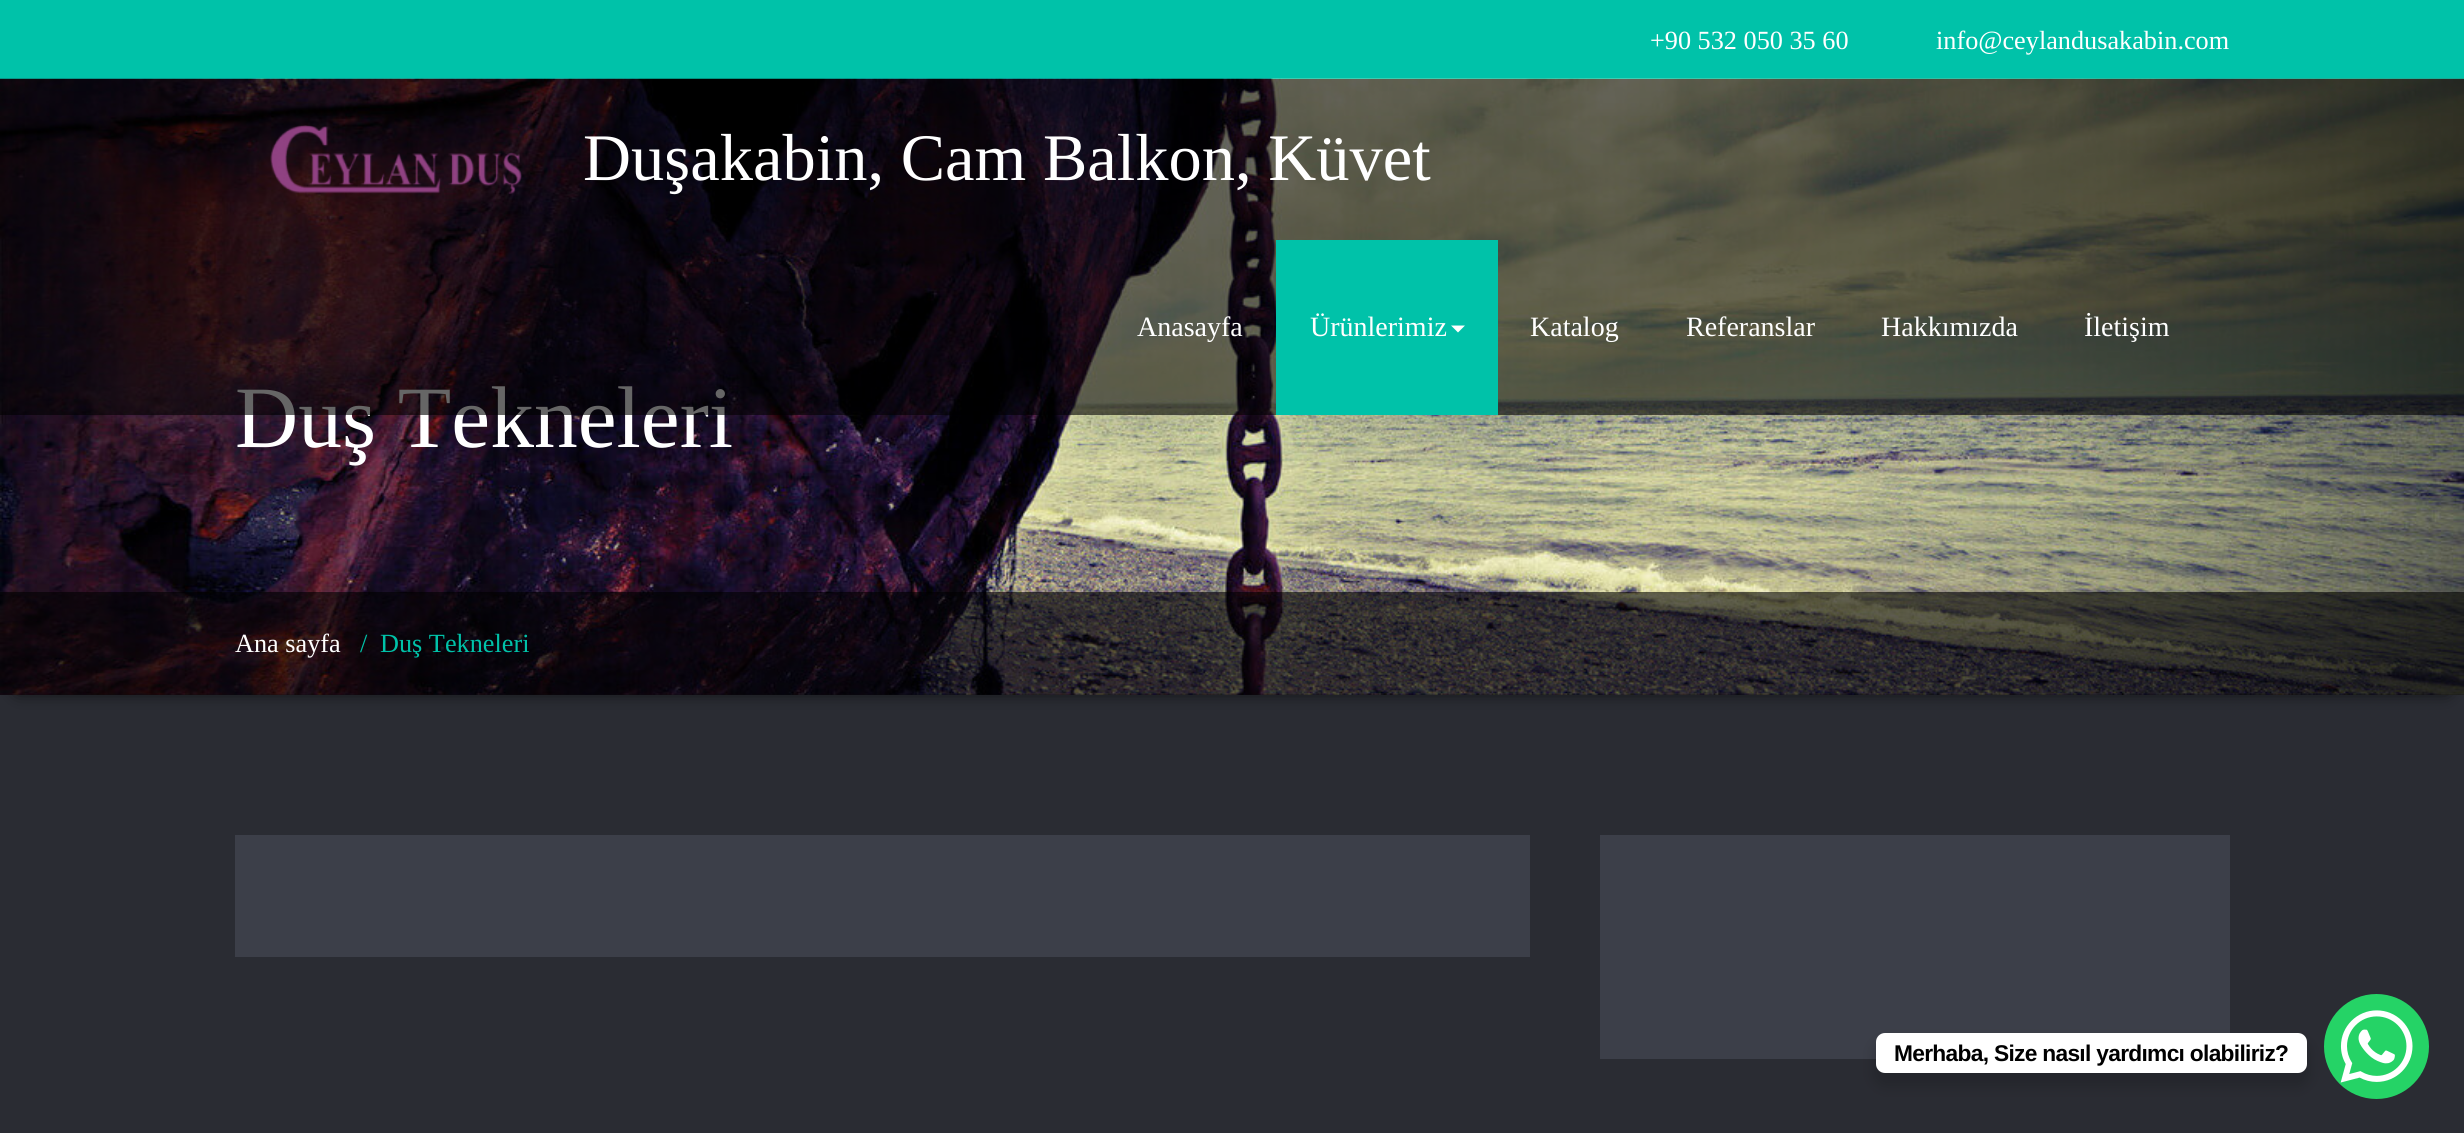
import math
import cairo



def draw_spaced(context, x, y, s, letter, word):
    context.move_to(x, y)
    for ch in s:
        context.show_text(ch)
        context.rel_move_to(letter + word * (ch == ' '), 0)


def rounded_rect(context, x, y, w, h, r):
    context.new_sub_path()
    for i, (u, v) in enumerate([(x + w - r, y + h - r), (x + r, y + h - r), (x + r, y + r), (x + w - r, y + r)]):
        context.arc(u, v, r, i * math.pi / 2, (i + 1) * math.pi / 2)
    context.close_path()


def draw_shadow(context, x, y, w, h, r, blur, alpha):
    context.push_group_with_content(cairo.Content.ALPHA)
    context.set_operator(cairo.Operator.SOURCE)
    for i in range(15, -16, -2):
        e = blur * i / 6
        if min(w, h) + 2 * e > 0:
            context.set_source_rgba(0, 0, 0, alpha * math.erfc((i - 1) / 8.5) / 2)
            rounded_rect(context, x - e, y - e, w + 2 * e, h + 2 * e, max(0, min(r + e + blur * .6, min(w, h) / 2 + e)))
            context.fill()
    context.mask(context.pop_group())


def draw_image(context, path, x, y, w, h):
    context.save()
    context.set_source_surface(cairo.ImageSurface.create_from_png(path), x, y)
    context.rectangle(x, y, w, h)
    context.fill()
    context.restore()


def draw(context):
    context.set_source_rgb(42 / 255, 44 / 255, 51 / 255)
    context.paint()
    context.set_source_rgb(0, 194 / 255, 169 / 255)
    context.rectangle(0, 0, 2464, 79)
    context.fill()
    context.set_source_rgb(0, 0, 0)
    draw_shadow(context, 18, 109, 2429, 581, 0, 9, 1)
    draw_image(context, "images/2.png", 0, 78, 2464, 617)
    context.set_source_rgba(0, 0, 0, 0.6)
    context.rectangle(0, 592, 2464, 103)
    context.fill()
    context.set_source_rgb(60 / 255, 63 / 255, 73 / 255)
    context.rectangle(235, 835, 1295, 122)
    context.fill()
    context.rectangle(1600, 835, 630, 224)
    context.fill()
    context.set_source_rgb(37 / 255, 211 / 255, 102 / 255)
    context.arc(2376.5, 1046.5, 52.5, 0, 2 * math.pi)
    context.fill()
    context.set_source_rgb(0, 0, 0)
    draw_shadow(context, 1873, 1040, 437, 47, 12, 7, 0.15)
    context.set_source_rgb(1, 1, 1)
    rounded_rect(context, 1876, 1033, 431, 40, 9)
    context.fill()
    draw_image(context, "images/3.png", 2340, 1010, 73, 73)
    context.select_font_face("Liberation Serif")
    context.set_font_size(26.25)
    context.move_to(1650, 49)
    context.show_text("+90 532 050 35 60")
    context.move_to(1936, 49)
    context.show_text("info@ceylandusakabin.com")
    context.set_font_size(87.5)
    context.move_to(235, 447)
    context.show_text("Duş Tekneleri")
    context.set_source_rgba(0, 0, 0, 0.6)
    context.rectangle(0, 79, 2464, 336)
    context.fill()
    context.set_font_size(28)
    context.set_source_rgb(1, 1, 1)
    context.move_to(2084, 336)
    context.show_text("İletişim")
    context.move_to(1881, 336)
    context.show_text("Hakkımızda")
    context.move_to(1686, 336)
    context.show_text("Referanslar")
    context.move_to(1530, 336)
    context.show_text("Katalog")
    context.set_source_rgb(0, 194 / 255, 169 / 255)
    context.rectangle(1276, 240, 222, 175)
    context.fill()
    context.set_source_rgb(1, 1, 1)
    context.new_path()
    context.move_to(1451, 325.5)
    context.line_to(1465, 325.5)
    context.line_to(1458, 332.5)
    context.close_path()
    context.fill()
    context.move_to(1310, 336)
    context.show_text("Ürünlerimiz")
    context.move_to(1137, 336)
    context.show_text("Anasayfa")
    context.set_font_size(66.5)
    context.move_to(583, 180)
    context.show_text("Duşakabin, Cam Balkon, Küvet")
    draw_image(context, "images/1.png", 270, 125, 252, 69)
    context.set_font_size(26.25)
    context.move_to(235, 652)
    context.show_text("Ana sayfa")
    context.set_source_rgb(0, 194 / 255, 169 / 255)
    context.move_to(360, 652)
    context.show_text("/")
    context.move_to(380, 652)
    context.show_text("Duş Tekneleri")
    context.select_font_face("Liberation Sans", cairo.FontSlant.NORMAL, cairo.FontWeight.BOLD)
    context.set_font_size(22.75)
    context.set_source_rgb(0, 0, 0)
    draw_spaced(context, 1894, 1061, "Merhaba, Size nasıl yardımcı olabiliriz?", -0.7, 0)


surface = cairo.ImageSurface(cairo.Format.RGB24, 2464, 1133)
context = cairo.Context(surface)
options = cairo.FontOptions()
options.set_hint_metrics(cairo.HintMetrics.OFF)
options.set_hint_style(cairo.HintStyle.NONE)
context.set_font_options(options)
context.set_miter_limit(4)
draw(context)
surface.write_to_png("out.png")
